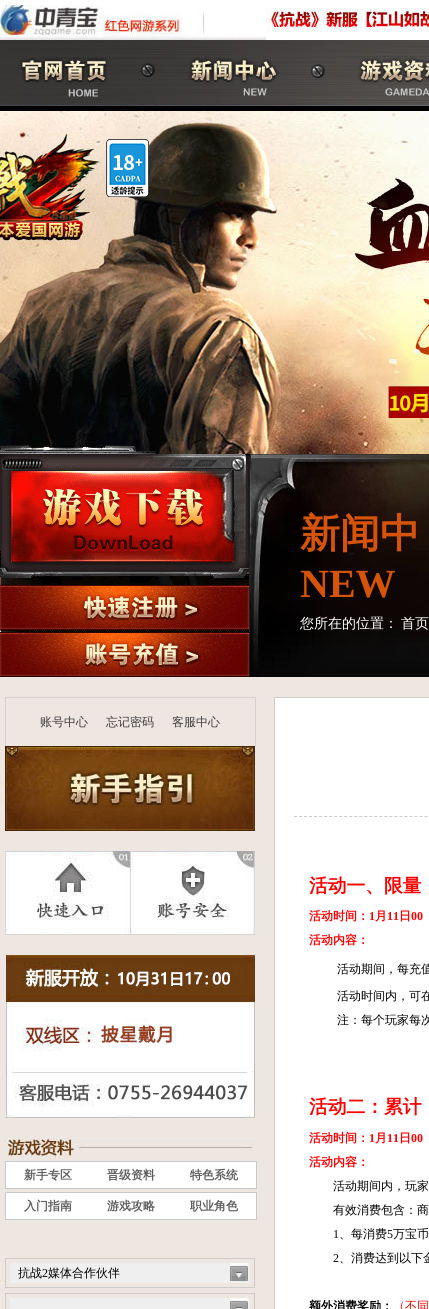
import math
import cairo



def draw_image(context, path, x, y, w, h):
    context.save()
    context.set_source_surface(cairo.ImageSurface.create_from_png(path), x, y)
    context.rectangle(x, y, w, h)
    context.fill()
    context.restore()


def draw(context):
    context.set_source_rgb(1, 1, 1)
    context.paint()
    draw_image(context, "images/1.png", 214, 36, 52, 4)
    draw_image(context, "images/2.png", 0, 0, 182, 40)
    draw_image(context, "images/3.png", 182, 11, 32, 29)
    draw_image(context, "images/4.png", 266, 8, 163, 32)
    draw_image(context, "images/5.png", 0, 40, 429, 71)
    context.set_source_rgb(237 / 255, 230 / 255, 225 / 255)
    context.rectangle(0, 677, 429, 632)
    context.fill()
    draw_image(context, "images/6.png", 0, 111, 429, 326)
    draw_image(context, "images/7.png", 106, 139, 44, 58)
    draw_image(context, "images/8.png", 0, 437, 429, 195)
    draw_image(context, "images/9.png", 0, 445, 250, 232)
    draw_image(context, "images/10.png", 250, 454, 179, 223)
    context.set_source_rgb(214 / 255, 208 / 255, 206 / 255)
    context.rectangle(5, 697, 251, 1)
    context.fill()
    context.rectangle(255, 697, 1, 49)
    context.fill()
    context.rectangle(5, 697, 1, 49)
    context.fill()
    draw_image(context, "images/11.png", 5, 746, 250, 85)
    draw_image(context, "images/12.png", 5, 851, 250, 84)
    draw_image(context, "images/13.png", 6, 955, 249, 163)
    draw_image(context, "images/14.png", 5, 1138, 250, 20)
    context.set_source_rgb(1, 1, 1)
    context.rectangle(5.5, 1161.5, 251, 27)
    context.fill_preserve()
    context.set_source_rgb(199 / 255, 201 / 255, 203 / 255)
    context.set_line_width(1)
    context.stroke()
    context.set_source_rgb(1, 1, 1)
    context.rectangle(5.5, 1192.5, 251, 27)
    context.fill_preserve()
    context.set_source_rgb(199 / 255, 201 / 255, 203 / 255)
    context.stroke()
    context.rectangle(5.5, 1258.5, 249, 29)
    context.set_source_rgb(208 / 255, 203 / 255, 201 / 255)
    context.stroke()
    context.set_source_rgb(240 / 255, 239 / 255, 240 / 255)
    context.rectangle(10, 1263, 240, 20)
    context.fill()
    draw_image(context, "images/15.png", 230, 1263, 18, 18)
    context.rectangle(5.5, 1293.5, 249, 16)
    context.set_source_rgb(208 / 255, 203 / 255, 201 / 255)
    context.stroke()
    context.set_source_rgb(240 / 255, 239 / 255, 240 / 255)
    context.rectangle(10, 1298, 240, 11)
    context.fill()
    draw_image(context, "images/16.png", 230, 1298, 18, 11)
    context.set_source_rgb(1, 1, 1)
    context.rectangle(274.5, 697.5, 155, 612)
    context.fill_preserve()
    context.set_source_rgb(205 / 255, 205 / 255, 205 / 255)
    context.stroke()
    context.new_path()
    context.move_to(294, 816.5)
    context.line_to(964, 816.5)
    context.set_source_rgb(204 / 255, 204 / 255, 204 / 255)
    context.set_dash([3, 2.02])
    context.stroke()
    context.select_font_face("WenQuanYi Zen Hei", cairo.FontSlant.NORMAL, cairo.FontWeight.BOLD)
    context.set_font_size(40)
    context.set_source_rgb(214 / 255, 84 / 255, 10 / 255)
    context.move_to(300, 547)
    context.show_text("新闻中")
    context.select_font_face("Liberation Serif", cairo.FontSlant.NORMAL, cairo.FontWeight.BOLD)
    context.move_to(300, 597)
    context.show_text("NEW")
    context.select_font_face("WenQuanYi Zen Hei Medium")
    context.set_font_size(14)
    context.set_source_rgb(1, 1, 1)
    context.move_to(300, 628)
    context.show_text("您所在的位置：")
    context.move_to(401, 628)
    context.show_text("首页")
    context.set_font_size(12)
    context.set_source_rgb(62 / 255, 61 / 255, 61 / 255)
    context.move_to(40, 726)
    context.show_text("账号中心")
    context.move_to(106, 726)
    context.show_text("忘记密码")
    context.move_to(172, 726)
    context.show_text("客服中心")
    context.select_font_face("WenQuanYi Zen Hei", cairo.FontSlant.NORMAL, cairo.FontWeight.BOLD)
    context.set_source_rgb(93 / 255, 93 / 255, 94 / 255)
    context.move_to(24, 1179)
    context.show_text("新手专区")
    context.move_to(107, 1179)
    context.show_text("晋级资料")
    context.move_to(190, 1179)
    context.show_text("特色系统")
    context.move_to(24, 1210)
    context.show_text("入门指南")
    context.move_to(107, 1210)
    context.show_text("游戏攻略")
    context.move_to(190, 1210)
    context.show_text("职业角色")
    context.select_font_face("WenQuanYi Zen Hei Medium")
    context.set_source_rgb(0, 0, 0)
    context.move_to(18, 1277)
    context.show_text("抗战")
    context.select_font_face("Liberation Serif")
    context.move_to(42, 1277)
    context.show_text("2")
    context.select_font_face("WenQuanYi Zen Hei Medium")
    context.move_to(48, 1277)
    context.show_text("媒体合作伙伴")
    context.select_font_face("WenQuanYi Zen Hei", cairo.FontSlant.NORMAL, cairo.FontWeight.BOLD)
    context.set_font_size(18.75)
    context.set_source_rgb(1, 0, 0)
    context.move_to(309, 892)
    context.show_text("活动一、限量")
    context.set_font_size(12)
    context.move_to(309, 920)
    context.show_text("活动时间：")
    context.select_font_face("Liberation Serif", cairo.FontSlant.NORMAL, cairo.FontWeight.BOLD)
    context.move_to(369, 920)
    context.show_text("1")
    context.select_font_face("WenQuanYi Zen Hei", cairo.FontSlant.NORMAL, cairo.FontWeight.BOLD)
    context.move_to(375, 920)
    context.show_text("月")
    context.select_font_face("Liberation Serif", cairo.FontSlant.NORMAL, cairo.FontWeight.BOLD)
    context.move_to(387, 920)
    context.show_text("11")
    context.select_font_face("WenQuanYi Zen Hei", cairo.FontSlant.NORMAL, cairo.FontWeight.BOLD)
    context.move_to(399, 920)
    context.show_text("日")
    context.select_font_face("Liberation Serif", cairo.FontSlant.NORMAL, cairo.FontWeight.BOLD)
    context.move_to(411, 920)
    context.show_text("00")
    context.select_font_face("WenQuanYi Zen Hei", cairo.FontSlant.NORMAL, cairo.FontWeight.BOLD)
    context.move_to(309, 944)
    context.show_text("活动内容：")
    context.select_font_face("WenQuanYi Zen Hei Medium")
    context.set_source_rgb(0, 0, 0)
    context.move_to(337, 973)
    context.show_text("活动期间，每充值")
    context.move_to(337, 1000)
    context.show_text("活动时间内，可在")
    context.move_to(337, 1024)
    context.show_text("注：每个玩家每次")
    context.select_font_face("WenQuanYi Zen Hei", cairo.FontSlant.NORMAL, cairo.FontWeight.BOLD)
    context.set_font_size(18.75)
    context.set_source_rgb(1, 0, 0)
    context.move_to(309, 1113)
    context.show_text("活动二：累计")
    context.set_font_size(12)
    context.move_to(309, 1142)
    context.show_text("活动时间：")
    context.select_font_face("Liberation Serif", cairo.FontSlant.NORMAL, cairo.FontWeight.BOLD)
    context.move_to(369, 1142)
    context.show_text("1")
    context.select_font_face("WenQuanYi Zen Hei", cairo.FontSlant.NORMAL, cairo.FontWeight.BOLD)
    context.move_to(375, 1142)
    context.show_text("月")
    context.select_font_face("Liberation Serif", cairo.FontSlant.NORMAL, cairo.FontWeight.BOLD)
    context.move_to(387, 1142)
    context.show_text("11")
    context.select_font_face("WenQuanYi Zen Hei", cairo.FontSlant.NORMAL, cairo.FontWeight.BOLD)
    context.move_to(399, 1142)
    context.show_text("日")
    context.select_font_face("Liberation Serif", cairo.FontSlant.NORMAL, cairo.FontWeight.BOLD)
    context.move_to(411, 1142)
    context.show_text("00")
    context.select_font_face("WenQuanYi Zen Hei", cairo.FontSlant.NORMAL, cairo.FontWeight.BOLD)
    context.move_to(309, 1166)
    context.show_text("活动内容：")
    context.select_font_face("WenQuanYi Zen Hei Medium")
    context.set_source_rgb(0, 0, 0)
    context.move_to(333, 1190)
    context.show_text("活动期间内，玩家")
    context.move_to(333, 1214)
    context.show_text("有效消费包含：商")
    context.select_font_face("Liberation Serif")
    context.move_to(333, 1238)
    context.show_text("1")
    context.select_font_face("WenQuanYi Zen Hei Medium")
    context.move_to(339, 1238)
    context.show_text("、每消费")
    context.select_font_face("Liberation Serif")
    context.move_to(387, 1238)
    context.show_text("5")
    context.select_font_face("WenQuanYi Zen Hei Medium")
    context.move_to(393, 1238)
    context.show_text("万宝币")
    context.select_font_face("Liberation Serif")
    context.move_to(333, 1262)
    context.show_text("2")
    context.select_font_face("WenQuanYi Zen Hei Medium")
    context.move_to(339, 1262)
    context.show_text("、消费达到以下金")
    context.select_font_face("WenQuanYi Zen Hei", cairo.FontSlant.NORMAL, cairo.FontWeight.BOLD)
    context.move_to(309, 1310)
    context.show_text("额外消费奖励：")
    context.select_font_face("WenQuanYi Zen Hei Medium")
    context.set_source_rgb(1, 0, 0)
    context.move_to(393, 1310)
    context.show_text("（不同")


surface = cairo.ImageSurface(cairo.Format.RGB24, 429, 1309)
context = cairo.Context(surface)
options = cairo.FontOptions()
options.set_hint_metrics(cairo.HintMetrics.OFF)
options.set_hint_style(cairo.HintStyle.NONE)
context.set_font_options(options)
context.set_miter_limit(4)
draw(context)
surface.write_to_png("out.png")
